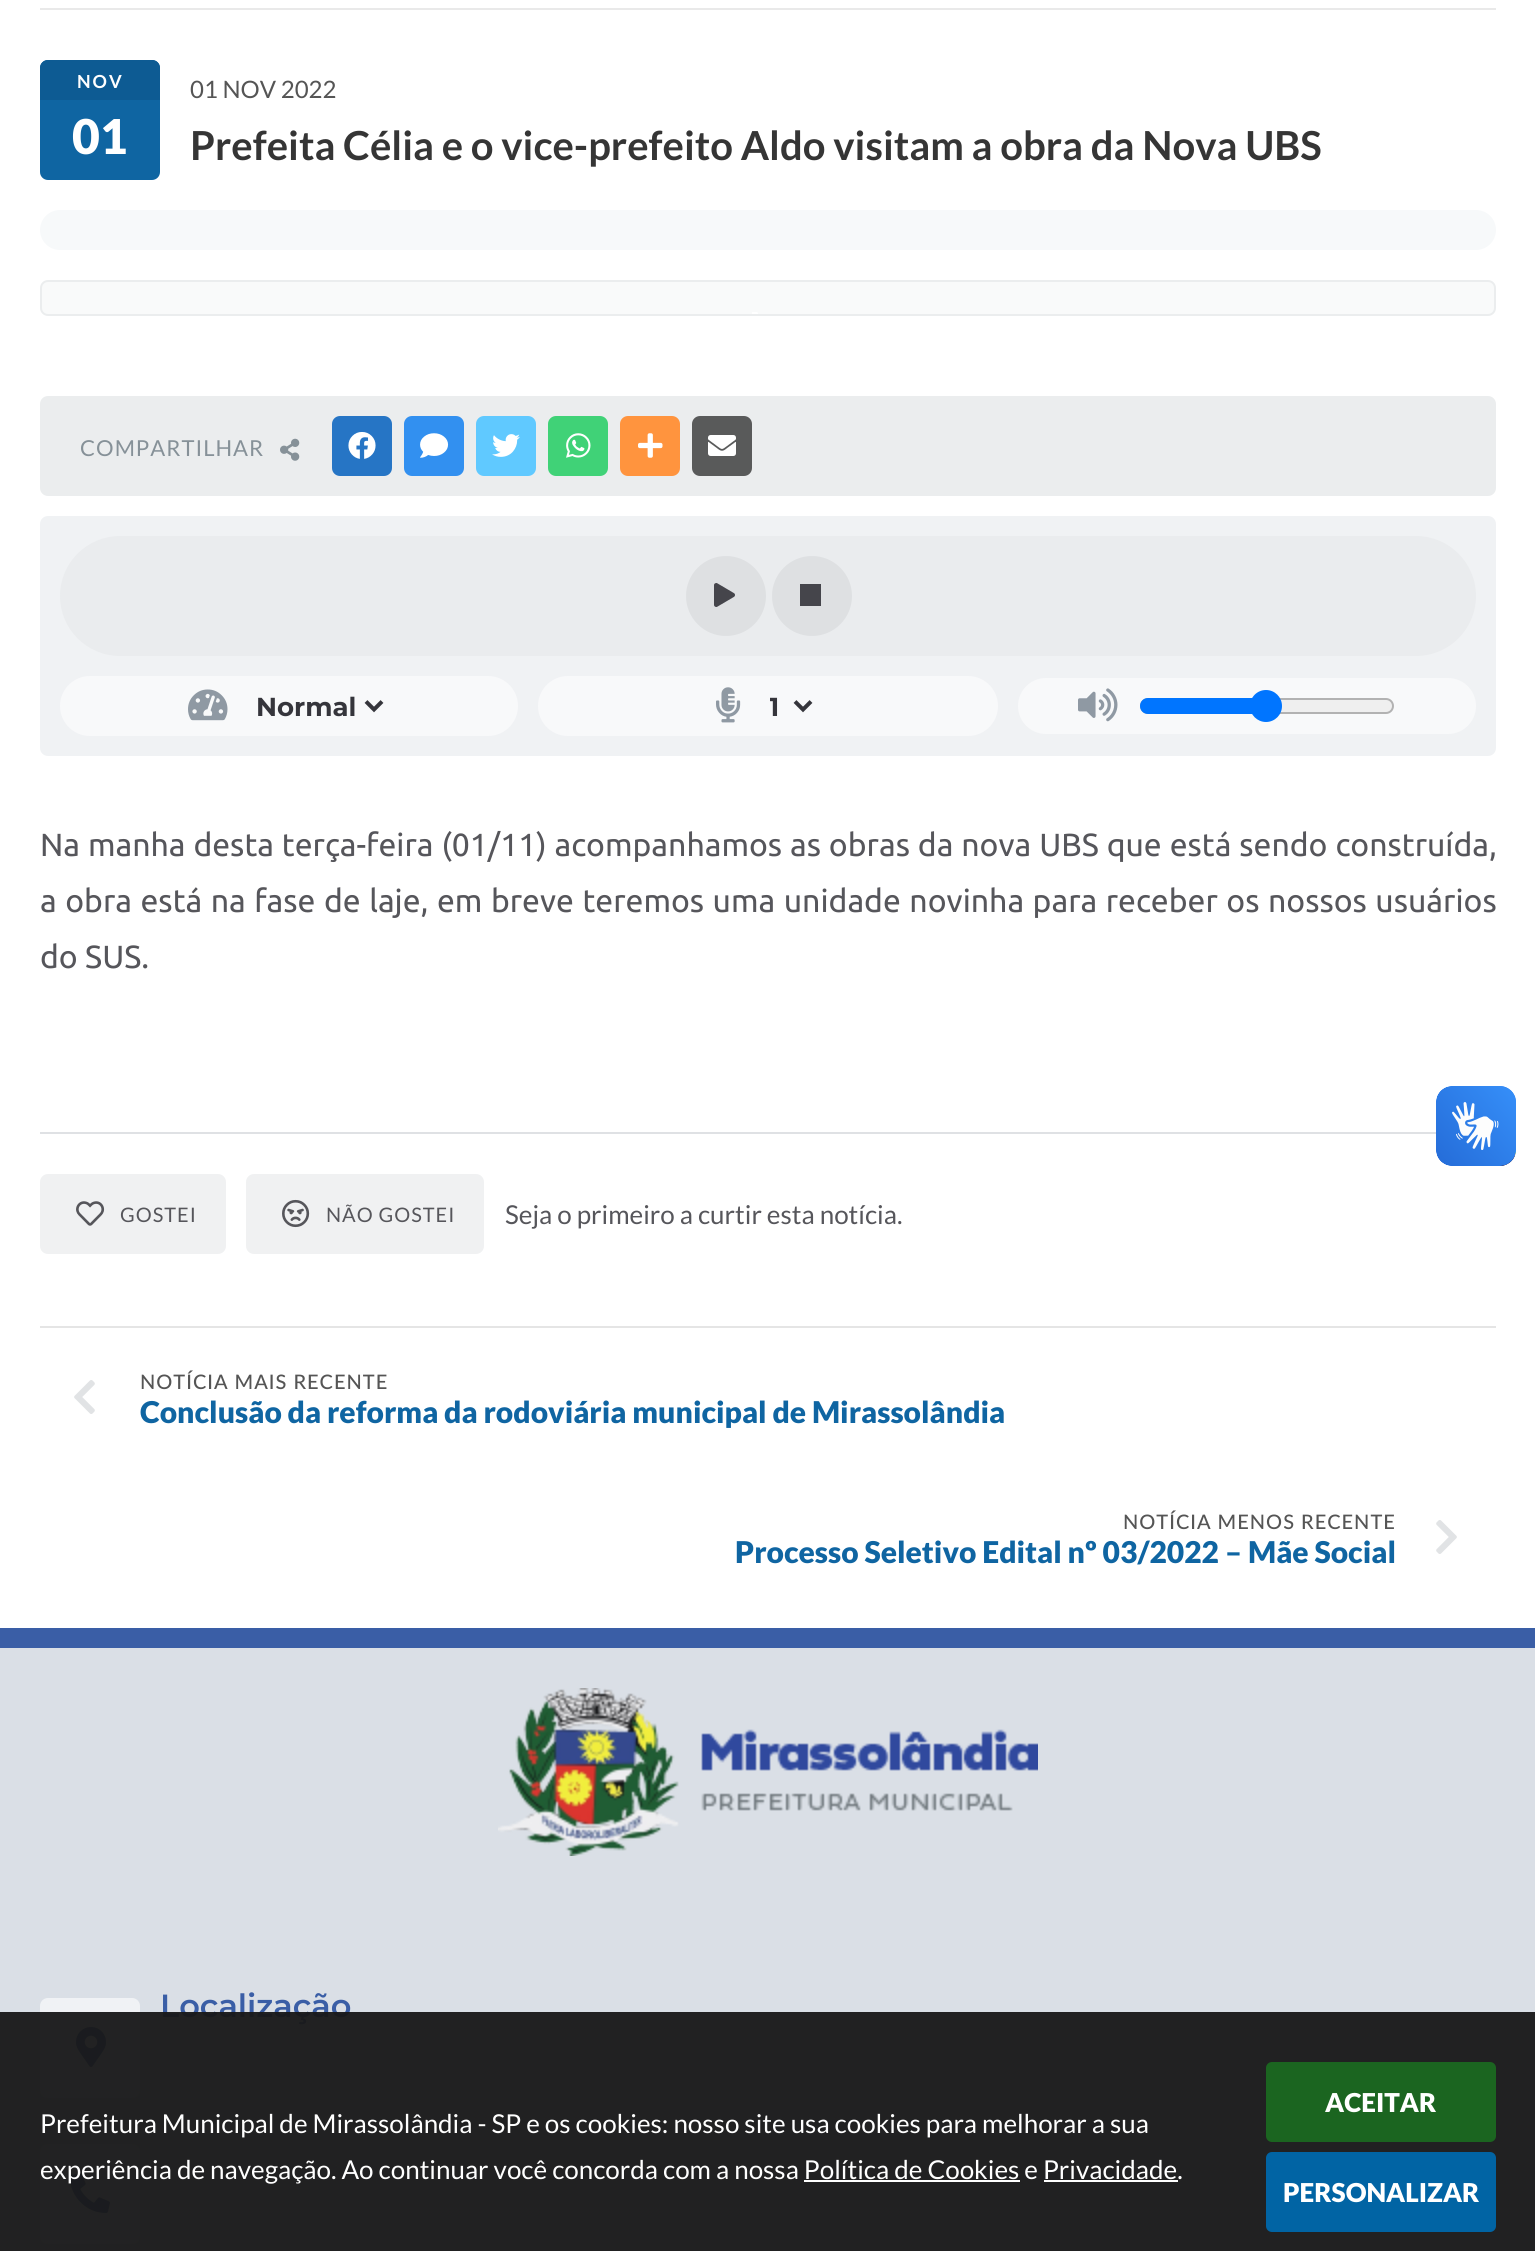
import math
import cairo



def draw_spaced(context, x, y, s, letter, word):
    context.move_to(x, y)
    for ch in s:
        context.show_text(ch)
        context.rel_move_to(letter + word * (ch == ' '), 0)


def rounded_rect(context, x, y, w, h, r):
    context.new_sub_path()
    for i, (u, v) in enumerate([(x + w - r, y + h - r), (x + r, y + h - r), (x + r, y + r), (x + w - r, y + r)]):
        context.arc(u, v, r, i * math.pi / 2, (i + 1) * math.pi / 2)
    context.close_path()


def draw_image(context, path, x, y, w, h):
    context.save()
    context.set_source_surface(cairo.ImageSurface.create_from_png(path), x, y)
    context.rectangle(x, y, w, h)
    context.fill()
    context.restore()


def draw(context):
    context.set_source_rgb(1, 1, 1)
    context.paint()
    context.set_source_rgb(233 / 255, 233 / 255, 233 / 255)
    context.rectangle(40, 8, 1456, 2)
    context.fill()
    context.set_source_rgb(15 / 255, 101 / 255, 162 / 255)
    rounded_rect(context, 40, 60, 120, 120, 8)
    context.fill()
    context.set_source_rgb(13 / 255, 91 / 255, 147 / 255)
    context.new_path()
    context.move_to(48, 60)
    context.line_to(152, 60)
    context.curve_to(156.5, 60, 160, 63.5, 160, 68)
    context.line_to(160, 100)
    context.line_to(40, 100)
    context.line_to(40, 68)
    context.curve_to(40, 63.5, 43.5, 60, 48, 60)
    context.close_path()
    context.fill()
    context.set_source_rgb(247 / 255, 249 / 255, 250 / 255)
    rounded_rect(context, 40, 210, 1456, 40, 20)
    context.fill()
    context.set_source_rgb(249 / 255, 250 / 255, 250 / 255)
    rounded_rect(context, 41, 281, 1454, 34, 7)
    context.fill_preserve()
    context.set_source_rgb(235 / 255, 237 / 255, 238 / 255)
    context.stroke()
    draw_image(context, "images/1.png", 752, 312, 6, 2)
    rounded_rect(context, 40, 396, 1456, 100, 8)
    context.fill()
    draw_image(context, "images/2.png", 280, 438, 20, 23)
    context.set_source_rgb(38 / 255, 117 / 255, 197 / 255)
    rounded_rect(context, 332, 416, 60, 60, 8)
    context.fill()
    draw_image(context, "images/3.png", 348, 432, 28, 27)
    context.set_source_rgb(50 / 255, 144 / 255, 240 / 255)
    rounded_rect(context, 404, 416, 60, 60, 8)
    context.fill()
    draw_image(context, "images/4.png", 420, 433, 29, 25)
    context.set_source_rgb(96 / 255, 201 / 255, 1)
    rounded_rect(context, 476, 416, 60, 60, 8)
    context.fill()
    draw_image(context, "images/5.png", 492, 434, 28, 23)
    context.set_source_rgb(64 / 255, 210 / 255, 119 / 255)
    rounded_rect(context, 548, 416, 60, 60, 8)
    context.fill()
    draw_image(context, "images/6.png", 566, 433, 25, 25)
    context.set_source_rgb(1, 148 / 255, 62 / 255)
    rounded_rect(context, 620, 416, 60, 60, 8)
    context.fill()
    draw_image(context, "images/7.png", 638, 433, 25, 25)
    context.set_source_rgb(89 / 255, 90 / 255, 90 / 255)
    rounded_rect(context, 692, 416, 60, 60, 8)
    context.fill()
    draw_image(context, "images/8.png", 708, 435, 28, 21)
    context.set_source_rgb(240 / 255, 242 / 255, 244 / 255)
    rounded_rect(context, 40, 516, 1456, 240, 8)
    context.fill()
    context.set_source_rgb(234 / 255, 236 / 255, 238 / 255)
    rounded_rect(context, 60, 536, 1416, 120, 60)
    context.fill()
    context.set_source_rgb(222 / 255, 224 / 255, 226 / 255)
    context.arc(726, 596, 40, 0, 2 * math.pi)
    context.fill()
    draw_image(context, "images/9.png", 714, 583, 21, 24)
    context.arc(812, 596, 40, 0, 2 * math.pi)
    context.fill()
    context.set_source_rgb(69 / 255, 69 / 255, 75 / 255)
    context.rectangle(800, 584, 21, 22)
    context.fill()
    context.set_source_rgb(248 / 255, 249 / 255, 250 / 255)
    rounded_rect(context, 60, 676, 458, 60, 30)
    context.fill()
    draw_image(context, "images/10.png", 188, 689, 40, 32)
    context.new_path()
    context.move_to(366, 701.5)
    context.line_to(374, 709.5)
    context.line_to(382, 701.5)
    context.set_source_rgb(53 / 255, 53 / 255, 59 / 255)
    context.set_line_width(4)
    context.stroke()
    context.set_source_rgb(248 / 255, 249 / 255, 250 / 255)
    rounded_rect(context, 538, 676, 460, 60, 30)
    context.fill()
    draw_image(context, "images/11.png", 716, 687, 25, 36)
    context.new_path()
    context.move_to(795, 701.5)
    context.line_to(803, 709.5)
    context.line_to(811, 701.5)
    context.set_source_rgb(53 / 255, 53 / 255, 59 / 255)
    context.stroke()
    context.set_source_rgb(248 / 255, 249 / 255, 250 / 255)
    rounded_rect(context, 1018, 678, 458, 56, 28)
    context.fill()
    draw_image(context, "images/12.png", 1078, 688, 40, 34)
    context.set_source_rgb(239 / 255, 239 / 255, 239 / 255)
    rounded_rect(context, 1141, 699, 252, 14, 7)
    context.fill_preserve()
    context.set_source_rgb(178 / 255, 178 / 255, 178 / 255)
    context.set_line_width(2)
    context.stroke()
    context.set_source_rgb(0, 117 / 255, 1)
    context.new_path()
    context.move_to(1148, 698)
    context.line_to(1266, 698)
    context.line_to(1266, 714)
    context.line_to(1148, 714)
    context.curve_to(1143.5, 714, 1140, 710.5, 1140, 706)
    context.curve_to(1140, 701.5, 1143.5, 698, 1148, 698)
    context.close_path()
    context.fill()
    context.arc(1266, 706, 16, 0, 2 * math.pi)
    context.fill()
    context.set_source_rgb(223 / 255, 225 / 255, 228 / 255)
    context.rectangle(40, 1132, 1396, 2)
    context.fill()
    context.set_source_rgb(240 / 255, 241 / 255, 242 / 255)
    rounded_rect(context, 40, 1174, 186, 80, 8)
    context.fill()
    draw_image(context, "images/13.png", 76, 1201, 29, 25)
    rounded_rect(context, 246, 1174, 238, 80, 8)
    context.fill()
    draw_image(context, "images/14.png", 282, 1199, 28, 29)
    context.set_source_rgb(229 / 255, 229 / 255, 229 / 255)
    context.rectangle(40, 1326, 1456, 2)
    context.fill()
    draw_image(context, "images/15.png", 74, 1380, 21, 34)
    draw_image(context, "images/16.png", 1436, 1520, 21, 34)
    context.set_source_rgb(218 / 255, 223 / 255, 230 / 255)
    context.rectangle(0, 1648, 1535, 603)
    context.fill()
    context.set_source_rgb(58 / 255, 94 / 255, 166 / 255)
    context.rectangle(0, 1628, 1535, 20)
    context.fill()
    draw_image(context, "images/17.png", 498, 1688, 540, 168)
    context.set_source_rgb(240 / 255, 242 / 255, 245 / 255)
    rounded_rect(context, 40, 1998, 100, 100, 8)
    context.fill()
    draw_image(context, "images/18.png", 76, 2027, 30, 40)
    rounded_rect(context, 40, 2144, 100, 100, 8)
    context.fill()
    draw_image(context, "images/19.png", 70, 2173, 40, 40)
    draw_image(context, "images/20.png", 1436, 1086, 80, 80)
    draw_image(context, "images/21.png", 1436, 1086, 80, 80)
    context.select_font_face("Lato", cairo.FontSlant.NORMAL, cairo.FontWeight.BOLD)
    context.set_font_size(18)
    context.set_source_rgb(1, 1, 1)
    draw_spaced(context, 77, 88, "NOV", 2, 0)
    context.select_font_face("Lato Black")
    context.set_font_size(48)
    context.move_to(72, 154)
    context.show_text("01")
    context.select_font_face("Lato")
    context.set_font_size(24)
    context.set_source_rgb(85 / 255, 85 / 255, 85 / 255)
    context.move_to(190, 98)
    context.show_text("01 NOV 2022")
    context.select_font_face("Lato", cairo.FontSlant.NORMAL, cairo.FontWeight.BOLD)
    context.set_font_size(40)
    context.set_source_rgb(53 / 255, 53 / 255, 53 / 255)
    context.move_to(190, 160)
    context.show_text("Prefeita Célia e o vice-prefeito Aldo visitam a obra da Nova UBS")
    context.select_font_face("Lato")
    context.set_font_size(22)
    context.set_source_rgb(134 / 255, 145 / 255, 152 / 255)
    draw_spaced(context, 80, 456, "COMPARTILHAR", 1, 0)
    context.select_font_face("Montserrat", cairo.FontSlant.NORMAL, cairo.FontWeight.BOLD)
    context.set_font_size(26)
    context.set_source_rgb(53 / 255, 53 / 255, 59 / 255)
    context.move_to(256, 716)
    context.show_text("Normal")
    context.save()
    context.rectangle(770, 688, 18, 36)
    context.clip()
    context.move_to(769, 716)
    context.show_text("1")
    context.restore()
    context.select_font_face("Ubuntu")
    context.set_font_size(32)
    context.set_source_rgb(86 / 255, 86 / 255, 91 / 255)
    draw_spaced(context, 40, 856, "Na manha desta terça-feira (01/11) acompanhamos as obras da nova UBS que está sendo construída,", 0, 0.5)
    draw_spaced(context, 40, 912, "a obra está na fase de laje, em breve teremos uma unidade novinha para receber os nossos usuários", 0, 1.1)
    context.move_to(40, 968)
    context.show_text("do SUS.")
    context.select_font_face("Lato")
    context.set_font_size(20)
    draw_spaced(context, 120, 1222, "GOSTEI", 1, 0)
    draw_spaced(context, 326, 1222, "NÃO GOSTEI", 1, 0)
    context.set_font_size(26)
    context.move_to(505, 1224)
    context.show_text("Seja o primeiro a curtir esta notícia.")
    context.select_font_face("Lato Medium")
    context.set_font_size(20)
    context.set_source_rgb(85 / 255, 85 / 255, 85 / 255)
    draw_spaced(context, 140, 1389, "NOTÍCIA MAIS RECENTE", 1, 0)
    context.select_font_face("Lato Black")
    context.set_font_size(30)
    context.set_source_rgb(15 / 255, 101 / 255, 162 / 255)
    context.move_to(140, 1423)
    context.show_text("Conclusão da reforma da rodoviária municipal de Mirassolândia")
    context.select_font_face("Lato Medium")
    context.set_font_size(20)
    context.set_source_rgb(85 / 255, 85 / 255, 85 / 255)
    draw_spaced(context, 1123, 1529, "NOTÍCIA MENOS RECENTE", 1, 0)
    context.select_font_face("Lato Black")
    context.set_font_size(30)
    context.set_source_rgb(15 / 255, 101 / 255, 162 / 255)
    context.move_to(735, 1563)
    context.show_text("Processo Seletivo Edital nº 03/2022 – Mãe Social")
    context.select_font_face("Montserrat SemiBold")
    context.set_font_size(32)
    context.set_source_rgb(58 / 255, 94 / 255, 166 / 255)
    context.move_to(160, 2017)
    context.show_text("Localização")
    context.set_source_rgba(25 / 255, 25 / 255, 25 / 255, 0.95)
    context.rectangle(0, 2012, 1535, 239)
    context.fill()
    context.select_font_face("Lato")
    context.set_font_size(26)
    context.set_source_rgb(1, 1, 1)
    context.move_to(40, 2133)
    context.show_text("Prefeitura Municipal de Mirassolândia - SP e os cookies: nosso site usa cookies para melhorar a sua")
    context.move_to(40, 2179)
    context.show_text("experiência de navegação. Ao continuar você concorda com a nossa Política de Cookies e Privacidade.")
    context.rectangle(804, 2180, 216, 2)
    context.fill()
    context.rectangle(1044, 2180, 134, 2)
    context.fill()
    context.set_source_rgb(27 / 255, 101 / 255, 32 / 255)
    rounded_rect(context, 1266, 2062, 230, 80, 6)
    context.fill()
    context.select_font_face("Lato Black")
    context.set_source_rgb(1, 1, 1)
    context.move_to(1325, 2112)
    context.show_text("ACEITAR")
    context.set_source_rgb(1 / 255, 100 / 255, 164 / 255)
    rounded_rect(context, 1266, 2152, 230, 80, 6)
    context.fill()
    context.set_source_rgb(1, 1, 1)
    context.move_to(1283, 2202)
    context.show_text("PERSONALIZAR")


surface = cairo.ImageSurface(cairo.Format.RGB24, 1535, 2251)
context = cairo.Context(surface)
options = cairo.FontOptions()
options.set_hint_metrics(cairo.HintMetrics.OFF)
options.set_hint_style(cairo.HintStyle.NONE)
context.set_font_options(options)
context.set_miter_limit(4)
draw(context)
surface.write_to_png("out.png")
